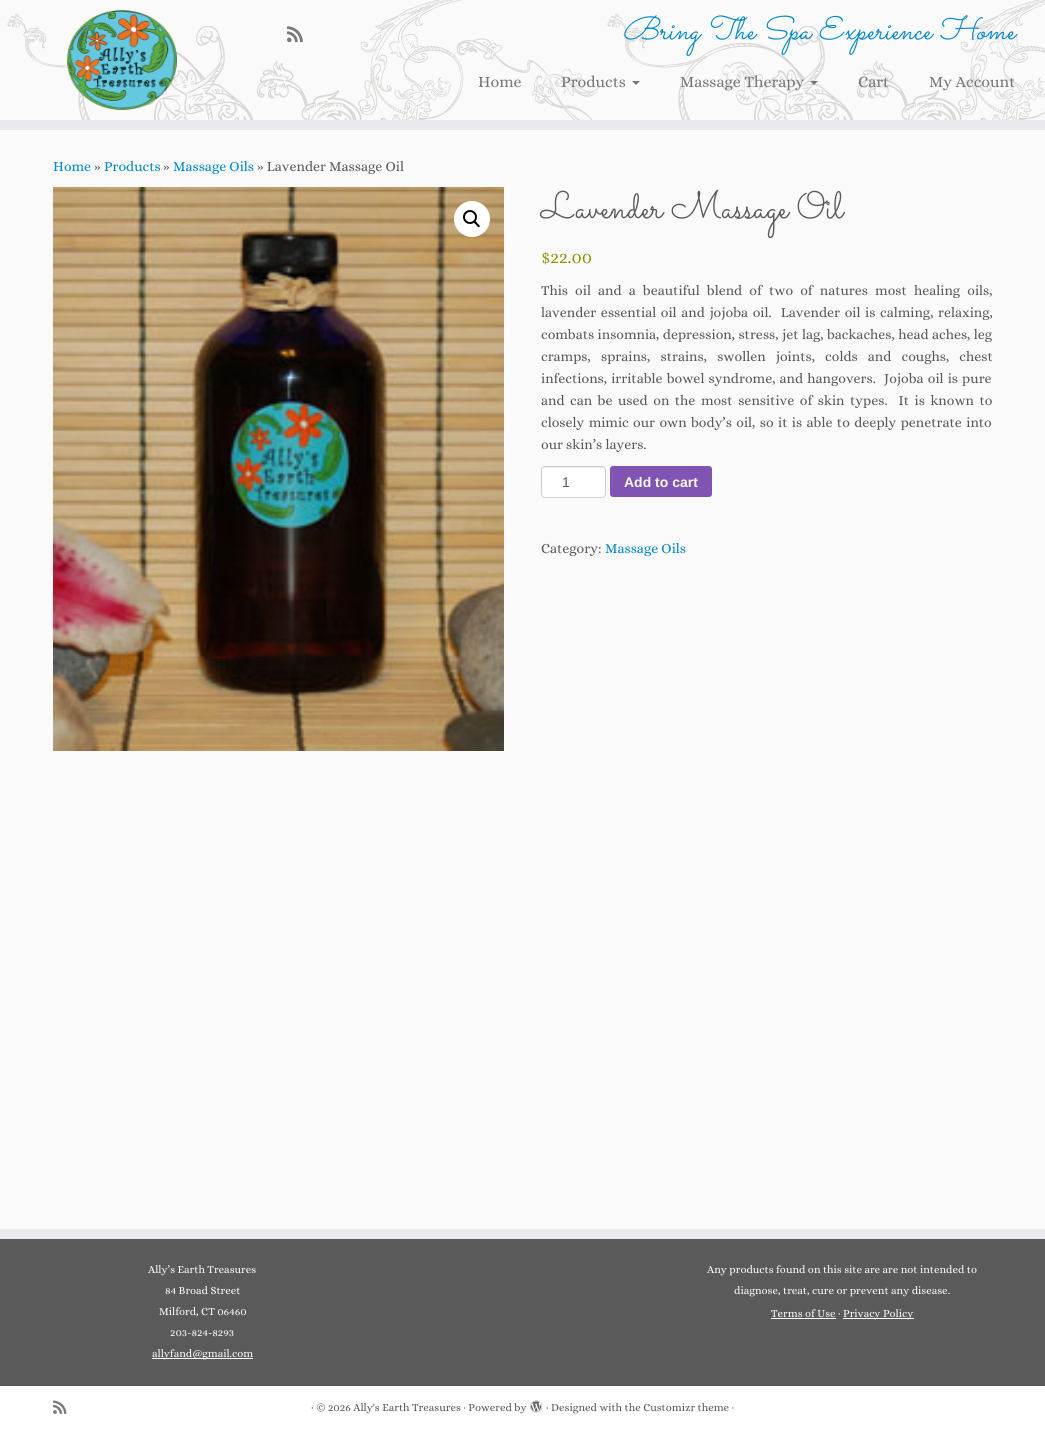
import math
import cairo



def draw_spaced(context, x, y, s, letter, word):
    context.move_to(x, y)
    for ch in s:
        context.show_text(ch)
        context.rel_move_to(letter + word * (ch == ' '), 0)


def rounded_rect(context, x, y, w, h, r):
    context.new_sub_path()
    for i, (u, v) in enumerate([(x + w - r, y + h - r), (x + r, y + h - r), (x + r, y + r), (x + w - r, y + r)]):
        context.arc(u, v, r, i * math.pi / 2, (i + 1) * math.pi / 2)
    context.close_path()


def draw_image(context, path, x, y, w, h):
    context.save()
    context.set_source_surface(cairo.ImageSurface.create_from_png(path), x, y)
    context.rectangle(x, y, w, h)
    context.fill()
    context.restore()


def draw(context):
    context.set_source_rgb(250 / 255, 250 / 255, 250 / 255)
    context.paint()
    draw_image(context, "images/1.png", 7, 0, 1038, 120)
    context.set_source_rgb(233 / 255, 234 / 255, 238 / 255)
    context.rectangle(0, 120, 1045, 10)
    context.fill()
    draw_image(context, "images/2.png", 67, 10, 110, 100)
    draw_image(context, "images/3.png", 287, 26, 16, 17)
    context.set_source_rgb(119 / 255, 119 / 255, 119 / 255)
    context.new_path()
    context.move_to(632, 81)
    context.line_to(640, 81)
    context.line_to(636, 85)
    context.close_path()
    context.fill()
    context.new_path()
    context.move_to(810, 81)
    context.line_to(818, 81)
    context.line_to(814, 85)
    context.close_path()
    context.fill()
    draw_image(context, "images/4.png", 53, 187, 451, 564)
    context.set_source_rgb(1, 1, 1)
    context.arc(472, 219, 18, 0, 2 * math.pi)
    context.fill()
    context.arc(470, 217, 6, 0, 2 * math.pi)
    context.set_source_rgb(0, 0, 0)
    context.stroke()
    context.new_path()
    context.move_to(474, 221)
    context.curve_to(475, 220, 477, 222.5, 477.5, 223.5)
    context.curve_to(478, 224, 480.5, 225.5, 479.5, 227)
    context.curve_to(478.5, 228, 476.5, 225.5, 476, 224.5)
    context.curve_to(475.5, 224, 472.5, 222.5, 474, 221)
    context.close_path()
    context.fill()
    context.set_source_rgb(1, 1, 1)
    rounded_rect(context, 541, 466, 65, 32, 4)
    context.fill()
    context.set_source_rgb(236 / 255, 236 / 255, 236 / 255)
    context.new_path()
    context.move_to(545, 468)
    context.line_to(602, 468)
    context.curve_to(604, 468, 605, 469, 605, 471)
    context.curve_to(605, 465, 597, 467, 592, 467)
    context.line_to(554, 467)
    context.curve_to(550, 467, 542, 465, 542, 471)
    context.curve_to(542, 469, 543, 468, 545, 468)
    context.close_path()
    context.fill()
    rounded_rect(context, 541.5, 466.5, 64, 31, 3.5)
    context.set_source_rgb(204 / 255, 204 / 255, 204 / 255)
    context.set_line_width(1)
    context.stroke()
    context.set_source_rgb(127 / 255, 84 / 255, 179 / 255)
    rounded_rect(context, 610, 466, 102, 31, 3)
    context.fill()
    context.set_source_rgb(90 / 255, 90 / 255, 90 / 255)
    context.rectangle(0, 1239, 1045, 147)
    context.fill()
    context.set_source_rgb(233 / 255, 234 / 255, 238 / 255)
    context.rectangle(0, 1229, 1045, 10)
    context.fill()
    context.set_source_rgb(250 / 255, 250 / 255, 250 / 255)
    context.rectangle(152, 1358, 101, 1)
    context.fill()
    context.rectangle(771, 1318, 65, 1)
    context.fill()
    context.rectangle(843, 1318, 71, 1)
    context.fill()
    context.set_source_rgb(1, 1, 1)
    context.rectangle(0, 1386, 1045, 52)
    context.fill()
    draw_image(context, "images/5.png", 53, 1400, 14, 14)
    draw_image(context, "images/6.png", 530, 1400, 12, 13)
    context.select_font_face("Sacramento", cairo.FontSlant.ITALIC)
    context.set_font_size(32)
    context.set_source_rgb(0, 136 / 255, 204 / 255)
    context.move_to(622, 39)
    context.show_text("Bring The Spa Experience Home")
    context.select_font_face("Alice")
    context.set_font_size(16)
    context.set_source_rgb(119 / 255, 119 / 255, 119 / 255)
    context.move_to(478, 87)
    context.show_text("Home")
    context.move_to(561, 87)
    context.show_text("Products")
    context.move_to(680, 87)
    context.show_text("Massage Therapy")
    context.move_to(858, 87)
    context.show_text("Cart")
    context.move_to(929, 87)
    context.show_text("My Account")
    context.set_font_size(14)
    context.set_source_rgb(0, 136 / 255, 204 / 255)
    context.move_to(53, 171)
    context.show_text("Home")
    context.set_source_rgb(90 / 255, 90 / 255, 90 / 255)
    context.move_to(94, 171)
    context.show_text("»")
    context.set_source_rgb(0, 136 / 255, 204 / 255)
    context.move_to(104, 171)
    context.show_text("Products")
    context.set_source_rgb(90 / 255, 90 / 255, 90 / 255)
    context.move_to(163, 171)
    context.show_text("»")
    context.set_source_rgb(0, 136 / 255, 204 / 255)
    context.move_to(173, 171)
    context.show_text("Massage Oils")
    context.set_source_rgb(90 / 255, 90 / 255, 90 / 255)
    context.move_to(257, 171)
    context.show_text("» Lavender Massage Oil")
    context.select_font_face("Sacramento")
    context.set_font_size(38)
    context.move_to(541, 218)
    context.show_text("Lavender Massage Oil")
    context.select_font_face("Alice")
    context.set_font_size(17.5)
    context.set_source_rgb(149 / 255, 142 / 255, 9 / 255)
    context.move_to(541, 263)
    context.show_text("$22.00")
    context.set_font_size(14)
    context.set_source_rgb(90 / 255, 90 / 255, 90 / 255)
    draw_spaced(context, 541, 295, "This oil and a beautiful blend of two of natures most healing oils,", 0, 4)
    draw_spaced(context, 541, 317, "lavender essential oil and jojoba oil.  Lavender oil is calming, relaxing,", 0, 1.5)
    draw_spaced(context, 541, 339, "combats insomnia, depression, stress, jet lag, backaches, head aches, leg", 0, 0.25)
    draw_spaced(context, 541, 361, "cramps, sprains, strains, swollen joints, colds and coughs, chest", 0, 7)
    draw_spaced(context, 541, 383, "infections, irritable bowel syndrome, and hangovers.  Jojoba oil is pure", 0, 1)
    draw_spaced(context, 541, 405, "and can be used on the most sensitive of skin types.  It is known to", 0, 2.4)
    draw_spaced(context, 541, 427, "closely mimic our own body’s oil, so it is able to deeply penetrate into", 0, 1.25)
    context.move_to(541, 449)
    context.show_text("our skin’s layers.")
    context.select_font_face("Liberation Sans")
    context.move_to(562, 487)
    context.show_text("1")
    context.select_font_face("Liberation Sans", cairo.FontSlant.NORMAL, cairo.FontWeight.BOLD)
    context.set_source_rgb(250 / 255, 250 / 255, 250 / 255)
    context.move_to(624, 487)
    context.show_text("Add to cart")
    context.select_font_face("Alice")
    context.set_source_rgb(90 / 255, 90 / 255, 90 / 255)
    context.move_to(541, 553)
    context.show_text("Category:")
    context.set_source_rgb(0, 136 / 255, 204 / 255)
    context.move_to(605, 553)
    context.show_text("Massage Oils")
    context.set_font_size(11)
    context.set_source_rgb(250 / 255, 250 / 255, 250 / 255)
    context.move_to(148, 1273)
    context.show_text("Ally’s Earth Treasures")
    context.move_to(165, 1294)
    context.show_text("84 Broad Street")
    context.move_to(159, 1315)
    context.show_text("Milford, CT 06460")
    context.move_to(170, 1336)
    context.show_text("203-824-8293")
    context.move_to(152, 1357)
    context.show_text("allyfand@gmail.com")
    context.move_to(707, 1273)
    context.show_text("Any products found on this site are are not intended to")
    context.move_to(734, 1294)
    context.show_text("diagnose, treat, cure or prevent any disease.")
    context.move_to(771, 1317)
    context.show_text("Terms of Use ·")
    context.move_to(843, 1317)
    context.show_text("Privacy Policy")
    context.set_source_rgb(90 / 255, 90 / 255, 90 / 255)
    context.move_to(311, 1411)
    context.show_text("· © 2026 Ally's Earth Treasures · Powered by")
    context.move_to(546, 1411)
    context.show_text("· Designed with the Customizr theme ·")


surface = cairo.ImageSurface(cairo.Format.RGB24, 1045, 1438)
context = cairo.Context(surface)
options = cairo.FontOptions()
options.set_hint_metrics(cairo.HintMetrics.OFF)
options.set_hint_style(cairo.HintStyle.NONE)
context.set_font_options(options)
context.set_miter_limit(4)
draw(context)
surface.write_to_png("out.png")
